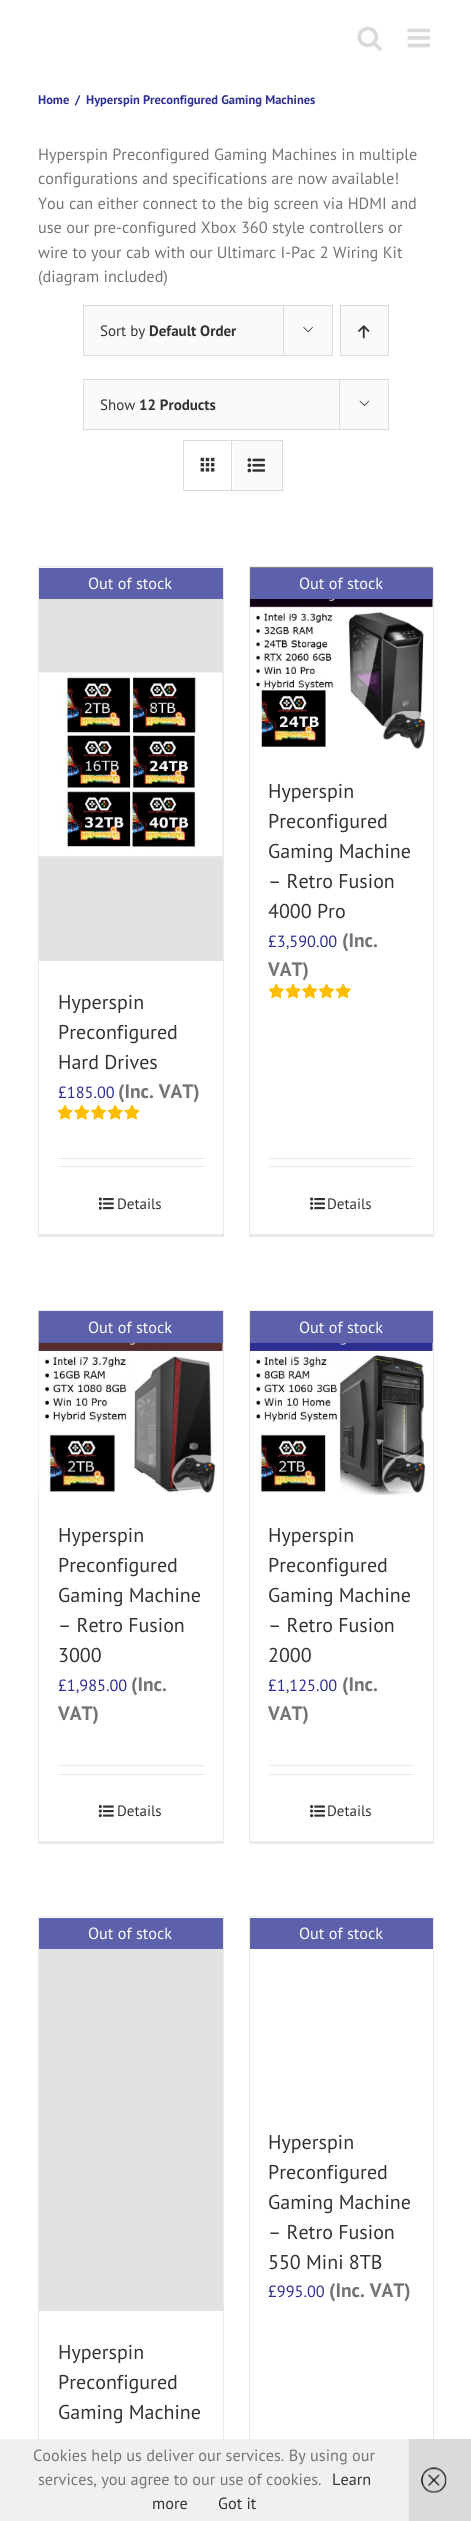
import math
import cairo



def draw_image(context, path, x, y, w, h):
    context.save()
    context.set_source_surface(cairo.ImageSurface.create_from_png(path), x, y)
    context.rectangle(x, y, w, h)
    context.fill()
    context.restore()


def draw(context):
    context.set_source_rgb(1, 1, 1)
    context.paint()
    draw_image(context, "images/1.png", 357, 26, 25, 25)
    draw_image(context, "images/2.png", 407, 28, 23, 20)
    context.set_source_rgb(251 / 255, 250 / 255, 249 / 255)
    context.rectangle(83.5, 305.5, 249, 50)
    context.fill_preserve()
    context.set_source_rgb(219 / 255, 219 / 255, 219 / 255)
    context.set_line_width(1)
    context.stroke()
    context.rectangle(283, 305, 1, 49)
    context.fill()
    draw_image(context, "images/3.png", 303, 327, 10, 6)
    context.set_source_rgb(251 / 255, 250 / 255, 249 / 255)
    context.rectangle(340.5, 305.5, 48, 50)
    context.fill_preserve()
    context.set_source_rgb(219 / 255, 219 / 255, 219 / 255)
    context.stroke()
    draw_image(context, "images/4.png", 358, 325, 12, 14)
    context.set_source_rgb(251 / 255, 250 / 255, 249 / 255)
    context.rectangle(83.5, 379.5, 305, 50)
    context.fill_preserve()
    context.set_source_rgb(219 / 255, 219 / 255, 219 / 255)
    context.stroke()
    context.rectangle(339, 379, 1, 49)
    context.fill()
    draw_image(context, "images/5.png", 359, 400, 11, 6)
    context.rectangle(183.5, 440.5, 99, 50)
    context.stroke()
    context.rectangle(231, 441, 1, 49)
    context.fill()
    draw_image(context, "images/6.png", 200, 457, 15, 15)
    context.set_source_rgb(251 / 255, 250 / 255, 249 / 255)
    context.rectangle(233, 441, 48, 49)
    context.fill()
    draw_image(context, "images/7.png", 247, 458, 18, 15)
    context.set_source_rgb(235 / 255, 234 / 255, 234 / 255)
    context.rectangle(38, 566, 186, 1)
    context.fill()
    context.rectangle(223, 566, 1, 670)
    context.fill()
    context.rectangle(38, 1234, 186, 3)
    context.fill()
    context.rectangle(38, 566, 1, 670)
    context.fill()
    context.set_source_rgb(93 / 255, 96 / 255, 170 / 255)
    context.rectangle(39, 568, 184, 31)
    context.fill()
    context.set_source_rgb(226 / 255, 226 / 255, 226 / 255)
    context.rectangle(39, 599, 184, 362)
    context.fill()
    draw_image(context, "images/8.png", 38, 672, 185, 185)
    draw_image(context, "images/9.png", 58, 1105, 82, 15)
    draw_image(context, "images/10.png", 58, 1105, 82, 15)
    context.set_source_rgb(235 / 255, 234 / 255, 234 / 255)
    context.rectangle(58, 1158, 146, 1)
    context.fill()
    context.rectangle(58, 1166, 146, 1)
    context.fill()
    draw_image(context, "images/11.png", 98, 1197, 16, 13)
    context.rectangle(249, 566, 185, 1)
    context.fill()
    context.rectangle(433, 566, 1, 670)
    context.fill()
    context.rectangle(249, 1234, 185, 3)
    context.fill()
    context.rectangle(249, 566, 1, 670)
    context.fill()
    draw_image(context, "images/12.png", 250, 567, 183, 182)
    context.set_source_rgb(93 / 255, 96 / 255, 170 / 255)
    context.rectangle(250, 568, 183, 31)
    context.fill()
    draw_image(context, "images/13.png", 269, 984, 82, 15)
    draw_image(context, "images/14.png", 269, 984, 82, 15)
    context.set_source_rgb(235 / 255, 234 / 255, 234 / 255)
    context.rectangle(269, 1158, 145, 1)
    context.fill()
    context.rectangle(269, 1166, 145, 1)
    context.fill()
    draw_image(context, "images/15.png", 310, 1197, 15, 13)
    context.rectangle(38, 1310, 186, 1)
    context.fill()
    context.rectangle(223, 1310, 1, 534)
    context.fill()
    context.rectangle(38, 1841, 186, 3)
    context.fill()
    context.rectangle(38, 1310, 1, 534)
    context.fill()
    draw_image(context, "images/16.png", 38, 1311, 185, 184)
    context.set_source_rgb(93 / 255, 96 / 255, 170 / 255)
    context.rectangle(39, 1311, 184, 32)
    context.fill()
    context.set_source_rgb(235 / 255, 234 / 255, 234 / 255)
    context.rectangle(58, 1765, 146, 1)
    context.fill()
    context.rectangle(58, 1774, 146, 1)
    context.fill()
    draw_image(context, "images/17.png", 98, 1805, 16, 13)
    context.rectangle(249, 1310, 185, 1)
    context.fill()
    context.rectangle(433, 1310, 1, 534)
    context.fill()
    context.rectangle(249, 1841, 185, 3)
    context.fill()
    context.rectangle(249, 1310, 1, 534)
    context.fill()
    context.set_source_rgb(93 / 255, 96 / 255, 170 / 255)
    context.rectangle(250, 1311, 183, 32)
    context.fill()
    draw_image(context, "images/18.png", 250, 1343, 183, 152)
    context.set_source_rgb(235 / 255, 234 / 255, 234 / 255)
    context.rectangle(269, 1765, 145, 1)
    context.fill()
    context.rectangle(269, 1774, 145, 1)
    context.fill()
    draw_image(context, "images/19.png", 310, 1805, 15, 13)
    context.rectangle(38, 1916, 186, 1)
    context.fill()
    context.rectangle(223, 1916, 1, 605)
    context.fill()
    context.rectangle(38, 1916, 1, 605)
    context.fill()
    context.set_source_rgb(93 / 255, 96 / 255, 170 / 255)
    context.rectangle(39, 1918, 184, 31)
    context.fill()
    context.set_source_rgb(226 / 255, 226 / 255, 226 / 255)
    context.rectangle(39, 1949, 184, 362)
    context.fill()
    context.set_source_rgb(235 / 255, 234 / 255, 234 / 255)
    context.rectangle(249, 1916, 185, 1)
    context.fill()
    context.rectangle(433, 1916, 1, 523)
    context.fill()
    context.rectangle(249, 1916, 1, 605)
    context.fill()
    context.set_source_rgb(93 / 255, 96 / 255, 170 / 255)
    context.rectangle(250, 1918, 183, 31)
    context.fill()
    context.set_source_rgba(238 / 255, 238 / 255, 238 / 255, 0.9)
    context.rectangle(0, 2439, 409, 82)
    context.fill()
    context.set_source_rgb(218 / 255, 218 / 255, 218 / 255)
    context.rectangle(409, 2439, 62, 82)
    context.fill()
    draw_image(context, "images/20.png", 421, 2467, 26, 26)
    context.select_font_face("PT Sans", cairo.FontSlant.NORMAL, cairo.FontWeight.BOLD)
    context.set_font_size(12.5)
    context.set_source_rgb(45 / 255, 48 / 255, 146 / 255)
    context.move_to(38, 104)
    context.show_text("Home")
    context.move_to(75, 104)
    context.show_text("/")
    context.move_to(86, 104)
    context.show_text("Hyperspin Preconfigured Gaming Machines")
    context.select_font_face("PT Sans")
    context.set_font_size(16.25)
    context.set_source_rgb(116 / 255, 116 / 255, 116 / 255)
    context.move_to(38, 160)
    context.show_text("Hyperspin Preconfigured Gaming Machines in multiple")
    context.move_to(38, 184)
    context.show_text("configurations and specifications are now available!")
    context.move_to(38, 209)
    context.show_text("You can either connect to the big screen via HDMI and")
    context.move_to(38, 233)
    context.show_text("use our pre-configured Xbox 360 style controllers or")
    context.move_to(38, 258)
    context.show_text("wire to your cab with our Ultimarc I-Pac 2 Wiring Kit")
    context.move_to(38, 282)
    context.show_text("(diagram included)")
    context.set_font_size(15)
    context.set_source_rgb(51 / 255, 51 / 255, 51 / 255)
    context.move_to(100, 336)
    context.show_text("Sort by")
    context.select_font_face("PT Sans", cairo.FontSlant.NORMAL, cairo.FontWeight.BOLD)
    context.move_to(149, 336)
    context.show_text("Default Order")
    context.select_font_face("PT Sans")
    context.move_to(100, 410)
    context.show_text("Show")
    context.select_font_face("PT Sans", cairo.FontSlant.NORMAL, cairo.FontWeight.BOLD)
    context.move_to(139, 410)
    context.show_text("12 Products")
    context.select_font_face("PT Sans")
    context.set_font_size(16.25)
    context.set_source_rgb(1, 1, 1)
    context.move_to(88, 589)
    context.show_text("Out of stock")
    context.set_font_size(20)
    context.set_source_rgb(51 / 255, 51 / 255, 51 / 255)
    context.move_to(58, 1009)
    context.show_text("Hyperspin")
    context.move_to(58, 1039)
    context.show_text("Preconfigured")
    context.move_to(58, 1069)
    context.show_text("Hard Drives")
    context.set_font_size(16.25)
    context.set_source_rgb(45 / 255, 48 / 255, 146 / 255)
    context.move_to(58, 1098)
    context.show_text("£185.00")
    context.select_font_face("PT Sans", cairo.FontSlant.NORMAL, cairo.FontWeight.BOLD)
    context.set_font_size(19.5)
    context.set_source_rgb(116 / 255, 116 / 255, 116 / 255)
    context.move_to(118, 1098)
    context.show_text("(Inc. VAT)")
    context.select_font_face("PT Sans")
    context.set_font_size(15)
    context.set_source_rgb(51 / 255, 51 / 255, 51 / 255)
    context.move_to(117, 1209)
    context.show_text("Details")
    context.set_font_size(16.25)
    context.set_source_rgb(1, 1, 1)
    context.move_to(299, 589)
    context.show_text("Out of stock")
    context.set_font_size(20)
    context.set_source_rgb(51 / 255, 51 / 255, 51 / 255)
    context.move_to(268, 798)
    context.show_text("Hyperspin")
    context.move_to(268, 828)
    context.show_text("Preconfigured")
    context.move_to(268, 858)
    context.show_text("Gaming Machine")
    context.move_to(268, 888)
    context.show_text("– Retro Fusion")
    context.move_to(268, 918)
    context.show_text("4000 Pro")
    context.set_font_size(16.25)
    context.set_source_rgb(45 / 255, 48 / 255, 146 / 255)
    context.move_to(268, 947)
    context.show_text("£3,590.00")
    context.select_font_face("PT Sans", cairo.FontSlant.NORMAL, cairo.FontWeight.BOLD)
    context.set_font_size(19.5)
    context.set_source_rgb(116 / 255, 116 / 255, 116 / 255)
    context.move_to(342, 947)
    context.show_text("(Inc.")
    context.move_to(268, 976)
    context.show_text("VAT)")
    context.select_font_face("PT Sans")
    context.set_font_size(15)
    context.set_source_rgb(51 / 255, 51 / 255, 51 / 255)
    context.move_to(327, 1209)
    context.show_text("Details")
    context.set_font_size(16.25)
    context.set_source_rgb(1, 1, 1)
    context.move_to(88, 1333)
    context.show_text("Out of stock")
    context.set_font_size(20)
    context.set_source_rgb(51 / 255, 51 / 255, 51 / 255)
    context.move_to(58, 1542)
    context.show_text("Hyperspin")
    context.move_to(58, 1572)
    context.show_text("Preconfigured")
    context.move_to(58, 1602)
    context.show_text("Gaming Machine")
    context.move_to(58, 1632)
    context.show_text("– Retro Fusion")
    context.move_to(58, 1662)
    context.show_text("3000")
    context.set_font_size(16.25)
    context.set_source_rgb(45 / 255, 48 / 255, 146 / 255)
    context.move_to(58, 1691)
    context.show_text("£1,985.00")
    context.select_font_face("PT Sans", cairo.FontSlant.NORMAL, cairo.FontWeight.BOLD)
    context.set_font_size(19.5)
    context.set_source_rgb(116 / 255, 116 / 255, 116 / 255)
    context.move_to(131, 1691)
    context.show_text("(Inc.")
    context.move_to(58, 1720)
    context.show_text("VAT)")
    context.select_font_face("PT Sans")
    context.set_font_size(15)
    context.set_source_rgb(51 / 255, 51 / 255, 51 / 255)
    context.move_to(117, 1816)
    context.show_text("Details")
    context.set_font_size(16.25)
    context.set_source_rgb(1, 1, 1)
    context.move_to(299, 1333)
    context.show_text("Out of stock")
    context.set_font_size(20)
    context.set_source_rgb(51 / 255, 51 / 255, 51 / 255)
    context.move_to(268, 1542)
    context.show_text("Hyperspin")
    context.move_to(268, 1572)
    context.show_text("Preconfigured")
    context.move_to(268, 1602)
    context.show_text("Gaming Machine")
    context.move_to(268, 1632)
    context.show_text("– Retro Fusion")
    context.move_to(268, 1662)
    context.show_text("2000")
    context.set_font_size(16.25)
    context.set_source_rgb(45 / 255, 48 / 255, 146 / 255)
    context.move_to(268, 1691)
    context.show_text("£1,125.00")
    context.select_font_face("PT Sans", cairo.FontSlant.NORMAL, cairo.FontWeight.BOLD)
    context.set_font_size(19.5)
    context.set_source_rgb(116 / 255, 116 / 255, 116 / 255)
    context.move_to(342, 1691)
    context.show_text("(Inc.")
    context.move_to(268, 1720)
    context.show_text("VAT)")
    context.select_font_face("PT Sans")
    context.set_font_size(15)
    context.set_source_rgb(51 / 255, 51 / 255, 51 / 255)
    context.move_to(327, 1816)
    context.show_text("Details")
    context.set_font_size(16.25)
    context.set_source_rgb(1, 1, 1)
    context.move_to(88, 1939)
    context.show_text("Out of stock")
    context.set_font_size(20)
    context.set_source_rgb(51 / 255, 51 / 255, 51 / 255)
    context.move_to(58, 2359)
    context.show_text("Hyperspin")
    context.move_to(58, 2389)
    context.show_text("Preconfigured")
    context.move_to(58, 2419)
    context.show_text("Gaming Machine")
    context.set_font_size(16.25)
    context.set_source_rgb(1, 1, 1)
    context.move_to(299, 1939)
    context.show_text("Out of stock")
    context.set_font_size(20)
    context.set_source_rgb(51 / 255, 51 / 255, 51 / 255)
    context.move_to(268, 2149)
    context.show_text("Hyperspin")
    context.move_to(268, 2179)
    context.show_text("Preconfigured")
    context.move_to(268, 2209)
    context.show_text("Gaming Machine")
    context.move_to(268, 2239)
    context.show_text("– Retro Fusion")
    context.move_to(268, 2269)
    context.show_text("550 Mini 8TB")
    context.set_font_size(16.25)
    context.set_source_rgb(45 / 255, 48 / 255, 146 / 255)
    context.move_to(268, 2297)
    context.show_text("£995.00")
    context.select_font_face("PT Sans", cairo.FontSlant.NORMAL, cairo.FontWeight.BOLD)
    context.set_font_size(19.5)
    context.set_source_rgb(116 / 255, 116 / 255, 116 / 255)
    context.move_to(329, 2297)
    context.show_text("(Inc. VAT)")
    context.select_font_face("PT Sans")
    context.set_font_size(16.25)
    context.move_to(33, 2461)
    context.show_text("Cookies help us deliver our services. By using our")
    context.move_to(38, 2485)
    context.show_text("services, you agree to our use of cookies.")
    context.set_source_rgb(51 / 255, 51 / 255, 51 / 255)
    context.move_to(332, 2485)
    context.show_text("Learn")
    context.move_to(152, 2509)
    context.show_text("more")
    context.move_to(218, 2509)
    context.show_text("Got it")


surface = cairo.ImageSurface(cairo.Format.RGB24, 471, 2521)
context = cairo.Context(surface)
options = cairo.FontOptions()
options.set_hint_metrics(cairo.HintMetrics.OFF)
options.set_hint_style(cairo.HintStyle.NONE)
context.set_font_options(options)
context.set_miter_limit(4)
draw(context)
surface.write_to_png("out.png")
